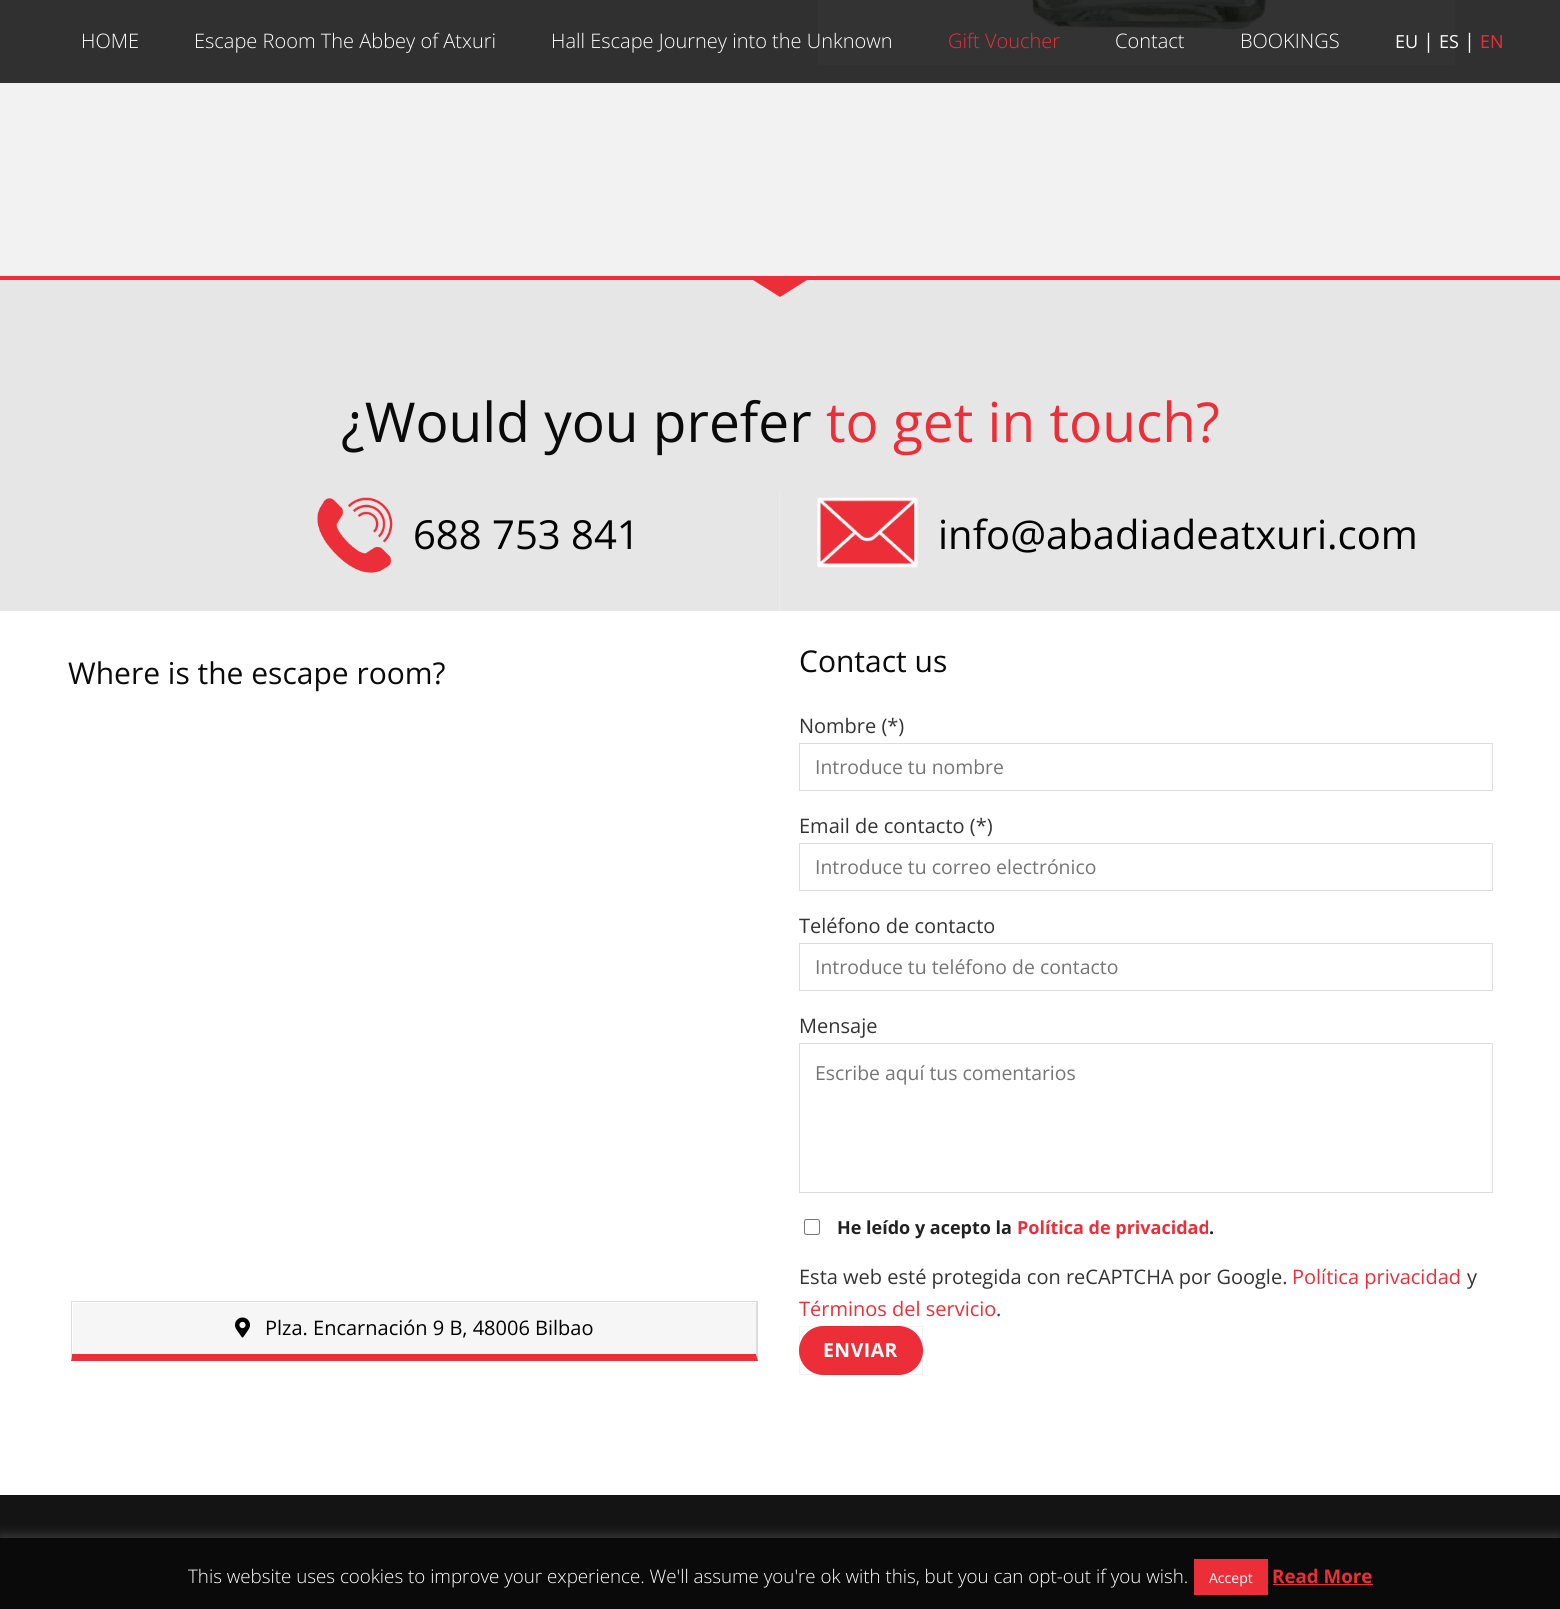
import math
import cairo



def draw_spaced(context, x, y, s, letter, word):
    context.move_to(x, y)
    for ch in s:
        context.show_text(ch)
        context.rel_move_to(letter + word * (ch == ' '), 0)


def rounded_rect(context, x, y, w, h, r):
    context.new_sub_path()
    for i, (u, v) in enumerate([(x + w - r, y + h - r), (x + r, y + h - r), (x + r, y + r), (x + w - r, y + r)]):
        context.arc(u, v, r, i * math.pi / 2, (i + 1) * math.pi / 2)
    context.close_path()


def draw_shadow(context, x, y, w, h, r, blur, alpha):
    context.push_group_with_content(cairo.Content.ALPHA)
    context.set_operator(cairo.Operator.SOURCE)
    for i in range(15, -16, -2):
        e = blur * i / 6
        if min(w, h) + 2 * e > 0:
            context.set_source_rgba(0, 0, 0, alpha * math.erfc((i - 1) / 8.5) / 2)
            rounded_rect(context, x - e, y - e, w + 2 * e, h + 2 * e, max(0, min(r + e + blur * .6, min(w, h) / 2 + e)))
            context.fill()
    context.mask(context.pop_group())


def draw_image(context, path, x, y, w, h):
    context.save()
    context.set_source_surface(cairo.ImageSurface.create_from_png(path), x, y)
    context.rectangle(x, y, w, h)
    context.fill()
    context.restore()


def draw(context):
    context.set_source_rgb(1, 1, 1)
    context.paint()
    context.set_source_rgb(242 / 255, 242 / 255, 242 / 255)
    context.rectangle(0, 83, 1560, 193)
    context.fill()
    context.set_source_rgb(48 / 255, 48 / 255, 48 / 255)
    context.rectangle(0, 0, 1560, 83)
    context.fill()
    draw_image(context, "images/1.png", 818, 0, 637, 65)
    context.set_source_rgb(230 / 255, 230 / 255, 230 / 255)
    context.rectangle(0, 280, 1560, 331)
    context.fill()
    context.set_source_rgb(236 / 255, 46 / 255, 56 / 255)
    context.new_path()
    context.move_to(-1, 276)
    context.line_to(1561, 276)
    context.line_to(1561, 280)
    context.line_to(807, 280)
    context.line_to(780, 297)
    context.line_to(753, 280)
    context.line_to(-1, 280)
    context.close_path()
    context.fill()
    context.set_source_rgb(236 / 255, 236 / 255, 236 / 255)
    context.rectangle(779, 494, 1, 117)
    context.fill()
    draw_image(context, "images/2.png", 317, 497, 76, 76)
    draw_image(context, "images/3.png", 817, 497, 101, 71)
    context.set_source_rgb(246 / 255, 246 / 255, 246 / 255)
    context.rectangle(73, 1303, 683, 51)
    context.fill()
    context.set_source_rgb(221 / 255, 221 / 255, 221 / 255)
    context.rectangle(71, 1301, 687, 1)
    context.fill()
    context.new_path()
    context.move_to(758, 1301)
    context.line_to(758, 1361)
    context.line_to(756, 1354)
    context.line_to(756, 1302)
    context.close_path()
    context.fill()
    context.set_source_rgb(236 / 255, 46 / 255, 56 / 255)
    context.new_path()
    context.move_to(758, 1361)
    context.line_to(71, 1361)
    context.line_to(72, 1354)
    context.line_to(756, 1354)
    context.close_path()
    context.fill()
    context.set_source_rgb(221 / 255, 221 / 255, 221 / 255)
    context.new_path()
    context.move_to(71, 1361)
    context.line_to(71, 1301)
    context.line_to(72, 1302)
    context.line_to(72, 1354)
    context.close_path()
    context.fill()
    draw_image(context, "images/4.png", 235, 1317, 15, 21)
    context.rectangle(799.5, 743.5, 693, 47)
    context.set_line_width(1)
    context.stroke()
    context.rectangle(799.5, 843.5, 693, 47)
    context.stroke()
    context.rectangle(799.5, 943.5, 693, 47)
    context.stroke()
    context.rectangle(799.5, 1043.5, 693, 149)
    context.stroke()
    rounded_rect(context, 804.5, 1219.5, 15, 15, 2)
    context.set_source_rgb(118 / 255, 118 / 255, 118 / 255)
    context.stroke()
    context.set_source_rgb(236 / 255, 46 / 255, 56 / 255)
    rounded_rect(context, 799, 1326, 124, 49, 24.5)
    context.fill()
    context.rectangle(799.5, 1326.5, 123, 48)
    context.set_source_rgba(0, 0, 0, 0.05)
    context.stroke()
    context.set_source_rgb(20 / 255, 20 / 255, 20 / 255)
    context.rectangle(0, 1495, 1560, 43)
    context.fill()
    context.set_source_rgb(172 / 255, 171 / 255, 171 / 255)
    draw_shadow(context, 0, 1536, 1560, 73, 0, 6, 0.3)
    context.set_source_rgb(10 / 255, 10 / 255, 10 / 255)
    context.rectangle(0, 1538, 1560, 71)
    context.fill()
    context.set_source_rgb(236 / 255, 46 / 255, 56 / 255)
    context.rectangle(1194, 1559, 74, 36)
    context.fill()
    context.rectangle(1273, 1584, 100, 1)
    context.fill()
    context.select_font_face("Open Sans Light")
    context.set_font_size(20)
    context.set_source_rgb(1, 1, 1)
    context.move_to(81, 48)
    context.show_text("HOME")
    context.move_to(194, 48)
    context.show_text("Escape Room The Abbey of Atxuri")
    context.move_to(551, 48)
    context.show_text("Hall Escape Journey into the Unknown")
    context.set_source_rgb(236 / 255, 46 / 255, 56 / 255)
    context.move_to(948, 48)
    context.show_text("Gift Voucher")
    context.set_source_rgb(1, 1, 1)
    context.move_to(1115, 48)
    context.show_text("Contact")
    context.move_to(1240, 48)
    context.show_text("BOOKINGS")
    context.select_font_face("Open Sans")
    context.set_font_size(18)
    context.move_to(1395, 48)
    context.show_text("EU")
    context.set_font_size(20)
    context.move_to(1423, 48)
    context.show_text("|")
    context.set_font_size(18)
    context.move_to(1439, 48)
    context.show_text("ES")
    context.set_font_size(20)
    context.move_to(1464, 48)
    context.show_text("|")
    context.set_font_size(18)
    context.set_source_rgb(236 / 255, 46 / 255, 56 / 255)
    context.move_to(1480, 48)
    context.show_text("EN")
    context.set_font_size(55)
    context.set_source_rgb(10 / 255, 10 / 255, 10 / 255)
    context.move_to(341, 442)
    context.show_text("¿Would you prefer")
    context.set_source_rgb(236 / 255, 46 / 255, 56 / 255)
    context.move_to(826, 442)
    context.show_text("to get in touch?")
    context.set_font_size(40)
    context.set_source_rgb(0, 0, 0)
    context.move_to(413, 549)
    context.show_text("688 753 841")
    context.move_to(938, 549)
    context.show_text("info@abadiadeatxuri.com")
    context.set_font_size(30)
    context.set_source_rgb(10 / 255, 10 / 255, 10 / 255)
    context.move_to(68, 684)
    context.show_text("Where is the escape room?")
    context.set_font_size(20)
    context.set_source_rgb(0, 0, 0)
    context.move_to(265, 1335)
    context.show_text("Plza. Encarnación 9 B, 48006 Bilbao")
    context.set_font_size(30)
    context.set_source_rgb(10 / 255, 10 / 255, 10 / 255)
    context.move_to(799, 672)
    context.show_text("Contact us")
    context.set_font_size(20)
    context.set_source_rgb(51 / 255, 51 / 255, 51 / 255)
    context.move_to(799, 733)
    context.show_text("Nombre (*)")
    context.set_font_size(19.4)
    context.set_source_rgb(117 / 255, 117 / 255, 117 / 255)
    context.move_to(815, 774)
    context.show_text("Introduce tu nombre")
    context.set_font_size(20)
    context.set_source_rgb(51 / 255, 51 / 255, 51 / 255)
    context.move_to(799, 833)
    context.show_text("Email de contacto (*)")
    context.set_font_size(19.4)
    context.set_source_rgb(117 / 255, 117 / 255, 117 / 255)
    context.move_to(815, 874)
    context.show_text("Introduce tu correo electrónico")
    context.set_font_size(20)
    context.set_source_rgb(51 / 255, 51 / 255, 51 / 255)
    context.move_to(799, 933)
    context.show_text("Teléfono de contacto")
    context.set_font_size(19.4)
    context.set_source_rgb(117 / 255, 117 / 255, 117 / 255)
    context.move_to(815, 974)
    context.show_text("Introduce tu teléfono de contacto")
    context.set_font_size(20)
    context.set_source_rgb(51 / 255, 51 / 255, 51 / 255)
    context.move_to(799, 1033)
    context.show_text("Mensaje")
    context.set_font_size(19.4)
    context.set_source_rgb(117 / 255, 117 / 255, 117 / 255)
    context.move_to(815, 1080)
    context.show_text("Escribe aquí tus comentarios")
    context.select_font_face("Open Sans", cairo.FontSlant.NORMAL, cairo.FontWeight.BOLD)
    context.set_font_size(18)
    context.set_source_rgb(34 / 255, 34 / 255, 34 / 255)
    context.move_to(837, 1234)
    context.show_text("He leído y acepto la")
    context.set_source_rgb(236 / 255, 46 / 255, 56 / 255)
    context.move_to(1017, 1234)
    context.show_text("Política de privacidad")
    context.set_source_rgb(34 / 255, 34 / 255, 34 / 255)
    context.move_to(1209, 1234)
    context.show_text(".")
    context.select_font_face("Open Sans")
    context.set_font_size(20)
    context.set_source_rgb(51 / 255, 51 / 255, 51 / 255)
    context.move_to(799, 1284)
    context.show_text("Esta web esté protegida con reCAPTCHA por Google.")
    context.set_source_rgb(236 / 255, 46 / 255, 56 / 255)
    context.move_to(1292, 1284)
    context.show_text("Política privacidad")
    context.set_source_rgb(51 / 255, 51 / 255, 51 / 255)
    context.move_to(1467, 1284)
    context.show_text("y")
    context.set_source_rgb(236 / 255, 46 / 255, 56 / 255)
    context.move_to(799, 1316)
    context.show_text("Términos del servicio")
    context.set_source_rgb(51 / 255, 51 / 255, 51 / 255)
    context.move_to(996, 1316)
    context.show_text(".")
    context.select_font_face("Open Sans", cairo.FontSlant.NORMAL, cairo.FontWeight.BOLD)
    context.set_font_size(19.4)
    context.set_source_rgb(1, 1, 1)
    draw_spaced(context, 823, 1357, "ENVIAR", 0.5, 0)
    context.select_font_face("Open Sans Light")
    context.set_font_size(18.75)
    context.move_to(188, 1583)
    context.show_text("This website uses cookies to improve your experience. We'll assume you're ok with this, but you can opt-out if you wish.")
    context.select_font_face("Open Sans")
    context.set_font_size(14)
    context.move_to(1209, 1583)
    context.show_text("Accept")
    context.select_font_face("Open Sans", cairo.FontSlant.NORMAL, cairo.FontWeight.BOLD)
    context.set_font_size(18.75)
    context.set_source_rgb(236 / 255, 46 / 255, 56 / 255)
    context.move_to(1272, 1583)
    context.show_text("Read More")


surface = cairo.ImageSurface(cairo.Format.RGB24, 1560, 1609)
context = cairo.Context(surface)
options = cairo.FontOptions()
options.set_hint_metrics(cairo.HintMetrics.OFF)
options.set_hint_style(cairo.HintStyle.NONE)
context.set_font_options(options)
context.set_miter_limit(4)
draw(context)
surface.write_to_png("out.png")
